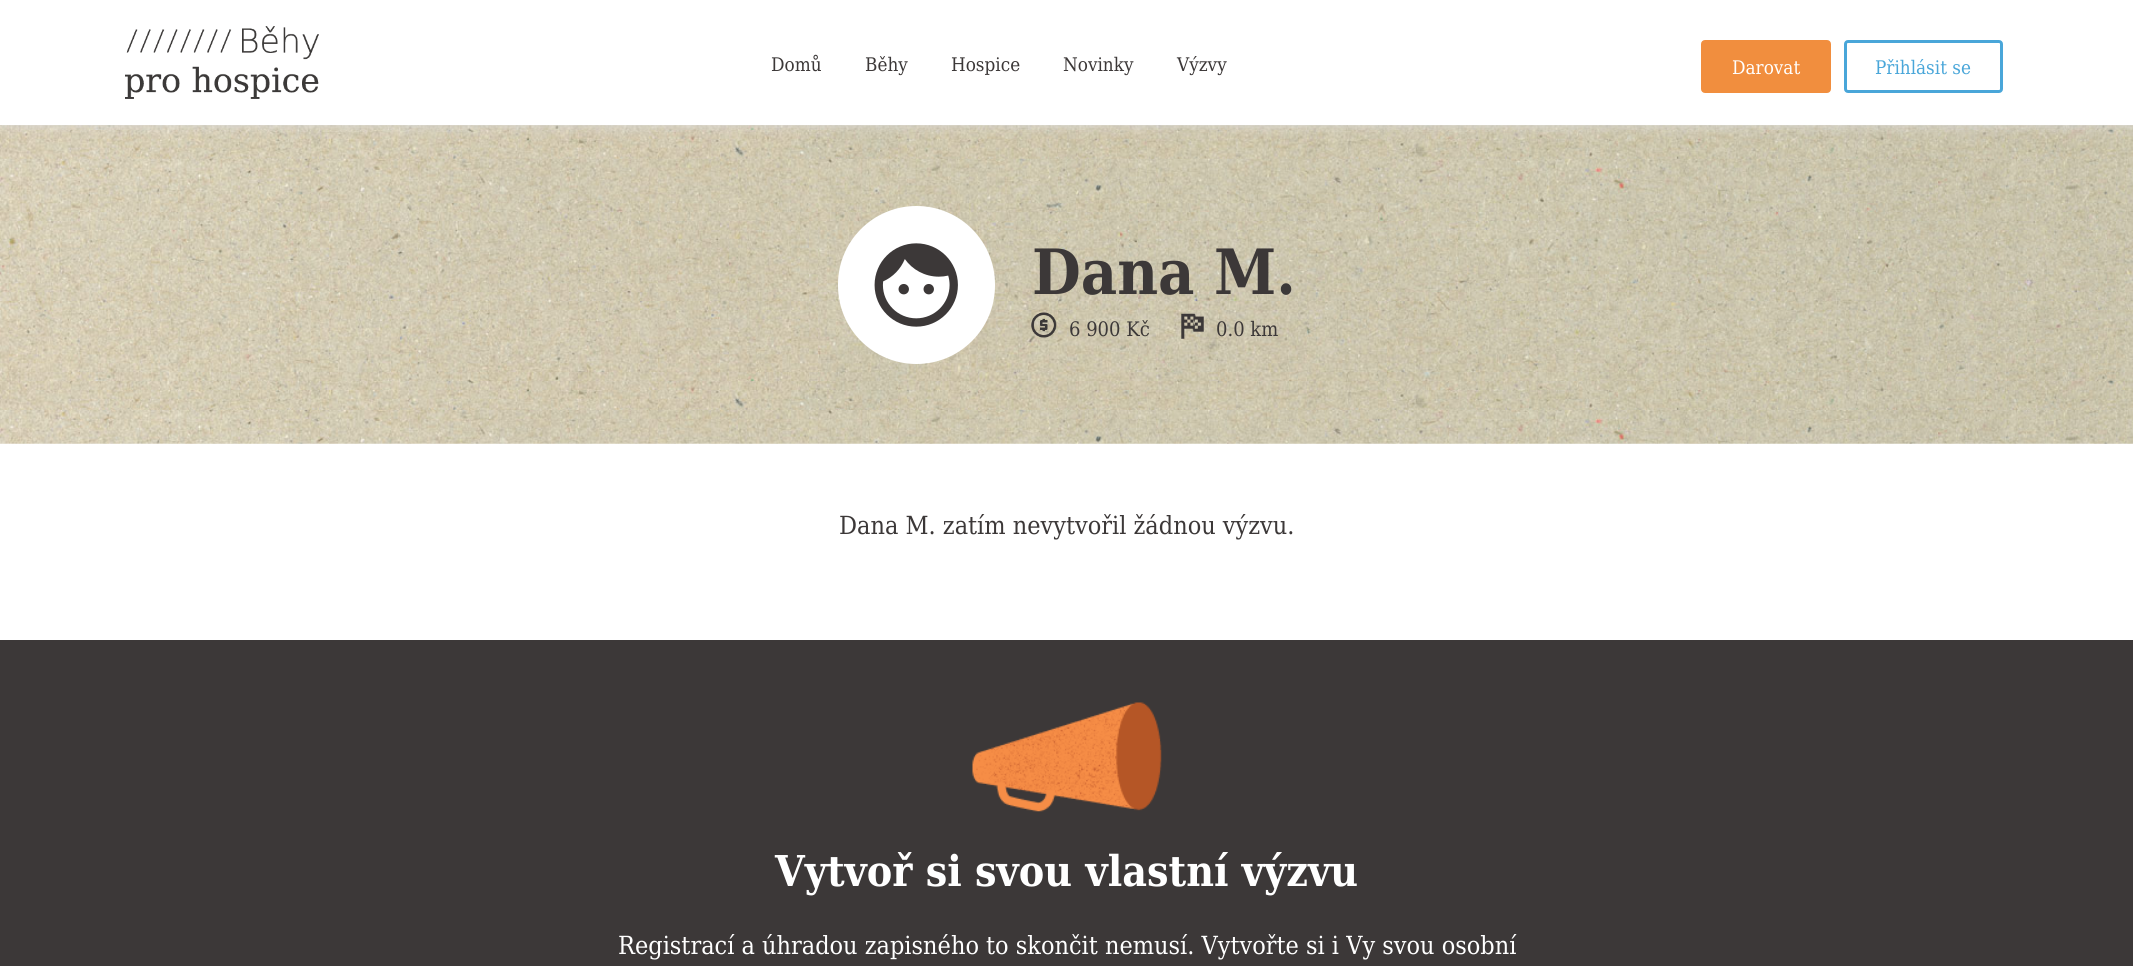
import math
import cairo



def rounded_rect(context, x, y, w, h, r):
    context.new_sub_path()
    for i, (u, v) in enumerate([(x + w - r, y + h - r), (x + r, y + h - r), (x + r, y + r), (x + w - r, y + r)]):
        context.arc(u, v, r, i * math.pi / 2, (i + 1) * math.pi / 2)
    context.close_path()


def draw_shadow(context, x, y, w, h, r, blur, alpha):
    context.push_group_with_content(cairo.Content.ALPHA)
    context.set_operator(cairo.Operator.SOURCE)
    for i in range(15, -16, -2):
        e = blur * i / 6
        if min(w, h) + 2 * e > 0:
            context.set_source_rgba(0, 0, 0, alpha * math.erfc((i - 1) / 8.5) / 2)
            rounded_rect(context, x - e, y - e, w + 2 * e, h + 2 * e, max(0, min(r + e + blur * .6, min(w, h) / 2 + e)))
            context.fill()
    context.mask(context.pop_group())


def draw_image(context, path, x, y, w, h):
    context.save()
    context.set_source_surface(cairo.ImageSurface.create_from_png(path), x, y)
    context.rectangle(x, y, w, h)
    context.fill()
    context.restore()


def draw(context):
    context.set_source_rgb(1, 1, 1)
    context.paint()
    draw_image(context, "images/2.png", 0, 125, 2133, 319)
    context.save()
    context.rectangle(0, 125, 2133, 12)
    context.clip()
    context.set_source_rgb(221 / 255, 221 / 255, 221 / 255)
    draw_shadow(context, 0, 0, 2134, 125, 0, 6, 1)
    context.restore()
    draw_image(context, "images/1.png", 125, 26, 194, 73)
    context.set_source_rgb(241 / 255, 142 / 255, 62 / 255)
    rounded_rect(context, 1702.5, 41.5, 127, 50, 2.5)
    context.fill_preserve()
    context.set_line_width(3)
    context.stroke()
    rounded_rect(context, 1845.5, 41.5, 156, 50, 2.5)
    context.set_source_rgb(73 / 255, 166 / 255, 217 / 255)
    context.stroke()
    context.set_source_rgb(1, 1, 1)
    rounded_rect(context, 838, 206, 157, 158, 78.5)
    context.fill()
    draw_image(context, "images/3.png", 874, 243, 84, 84)
    draw_image(context, "images/4.png", 1031, 312, 26, 26)
    draw_image(context, "images/5.png", 1181, 313, 23, 26)
    context.set_source_rgb(60 / 255, 56 / 255, 56 / 255)
    context.rectangle(0, 640, 2133, 326)
    context.fill()
    draw_image(context, "images/6.png", 972, 702, 190, 110)
    context.select_font_face("DejaVu Serif")
    context.set_font_size(18.75)
    context.move_to(771, 71)
    context.show_text("Domů")
    context.move_to(865, 71)
    context.show_text("Běhy")
    context.move_to(951, 71)
    context.show_text("Hospice")
    context.move_to(1063, 71)
    context.show_text("Novinky")
    context.move_to(1177, 71)
    context.show_text("Výzvy")
    context.set_source_rgb(1, 1, 1)
    context.move_to(1732, 74)
    context.show_text("Darovat")
    context.set_source_rgb(73 / 255, 166 / 255, 217 / 255)
    context.move_to(1875, 74)
    context.show_text("Přihlásit se")
    context.select_font_face("DejaVu Serif", cairo.FontSlant.NORMAL, cairo.FontWeight.BOLD)
    context.set_font_size(62.5)
    context.set_source_rgb(60 / 255, 56 / 255, 56 / 255)
    context.move_to(1032, 294)
    context.show_text("Dana M.")
    context.select_font_face("DejaVu Serif")
    context.set_font_size(20)
    context.move_to(1069, 336)
    context.show_text("6 900 Kč")
    context.move_to(1216, 336)
    context.show_text("0.0 km")
    context.set_font_size(25)
    context.move_to(839, 534)
    context.show_text("Dana M. zatím nevytvořil žádnou výzvu.")
    context.select_font_face("DejaVu Serif", cairo.FontSlant.NORMAL, cairo.FontWeight.BOLD)
    context.set_font_size(42.5)
    context.set_source_rgb(1, 1, 1)
    context.move_to(775, 886)
    context.show_text("Vytvoř si svou vlastní výzvu")
    context.select_font_face("DejaVu Serif")
    context.set_font_size(25)
    context.move_to(618, 954)
    context.show_text("Registrací a úhradou zapisného to skončit nemusí. Vytvořte si i Vy svou osobní")


surface = cairo.ImageSurface(cairo.Format.RGB24, 2133, 966)
context = cairo.Context(surface)
options = cairo.FontOptions()
options.set_hint_metrics(cairo.HintMetrics.OFF)
options.set_hint_style(cairo.HintStyle.NONE)
context.set_font_options(options)
context.set_miter_limit(4)
draw(context)
surface.write_to_png("out.png")
